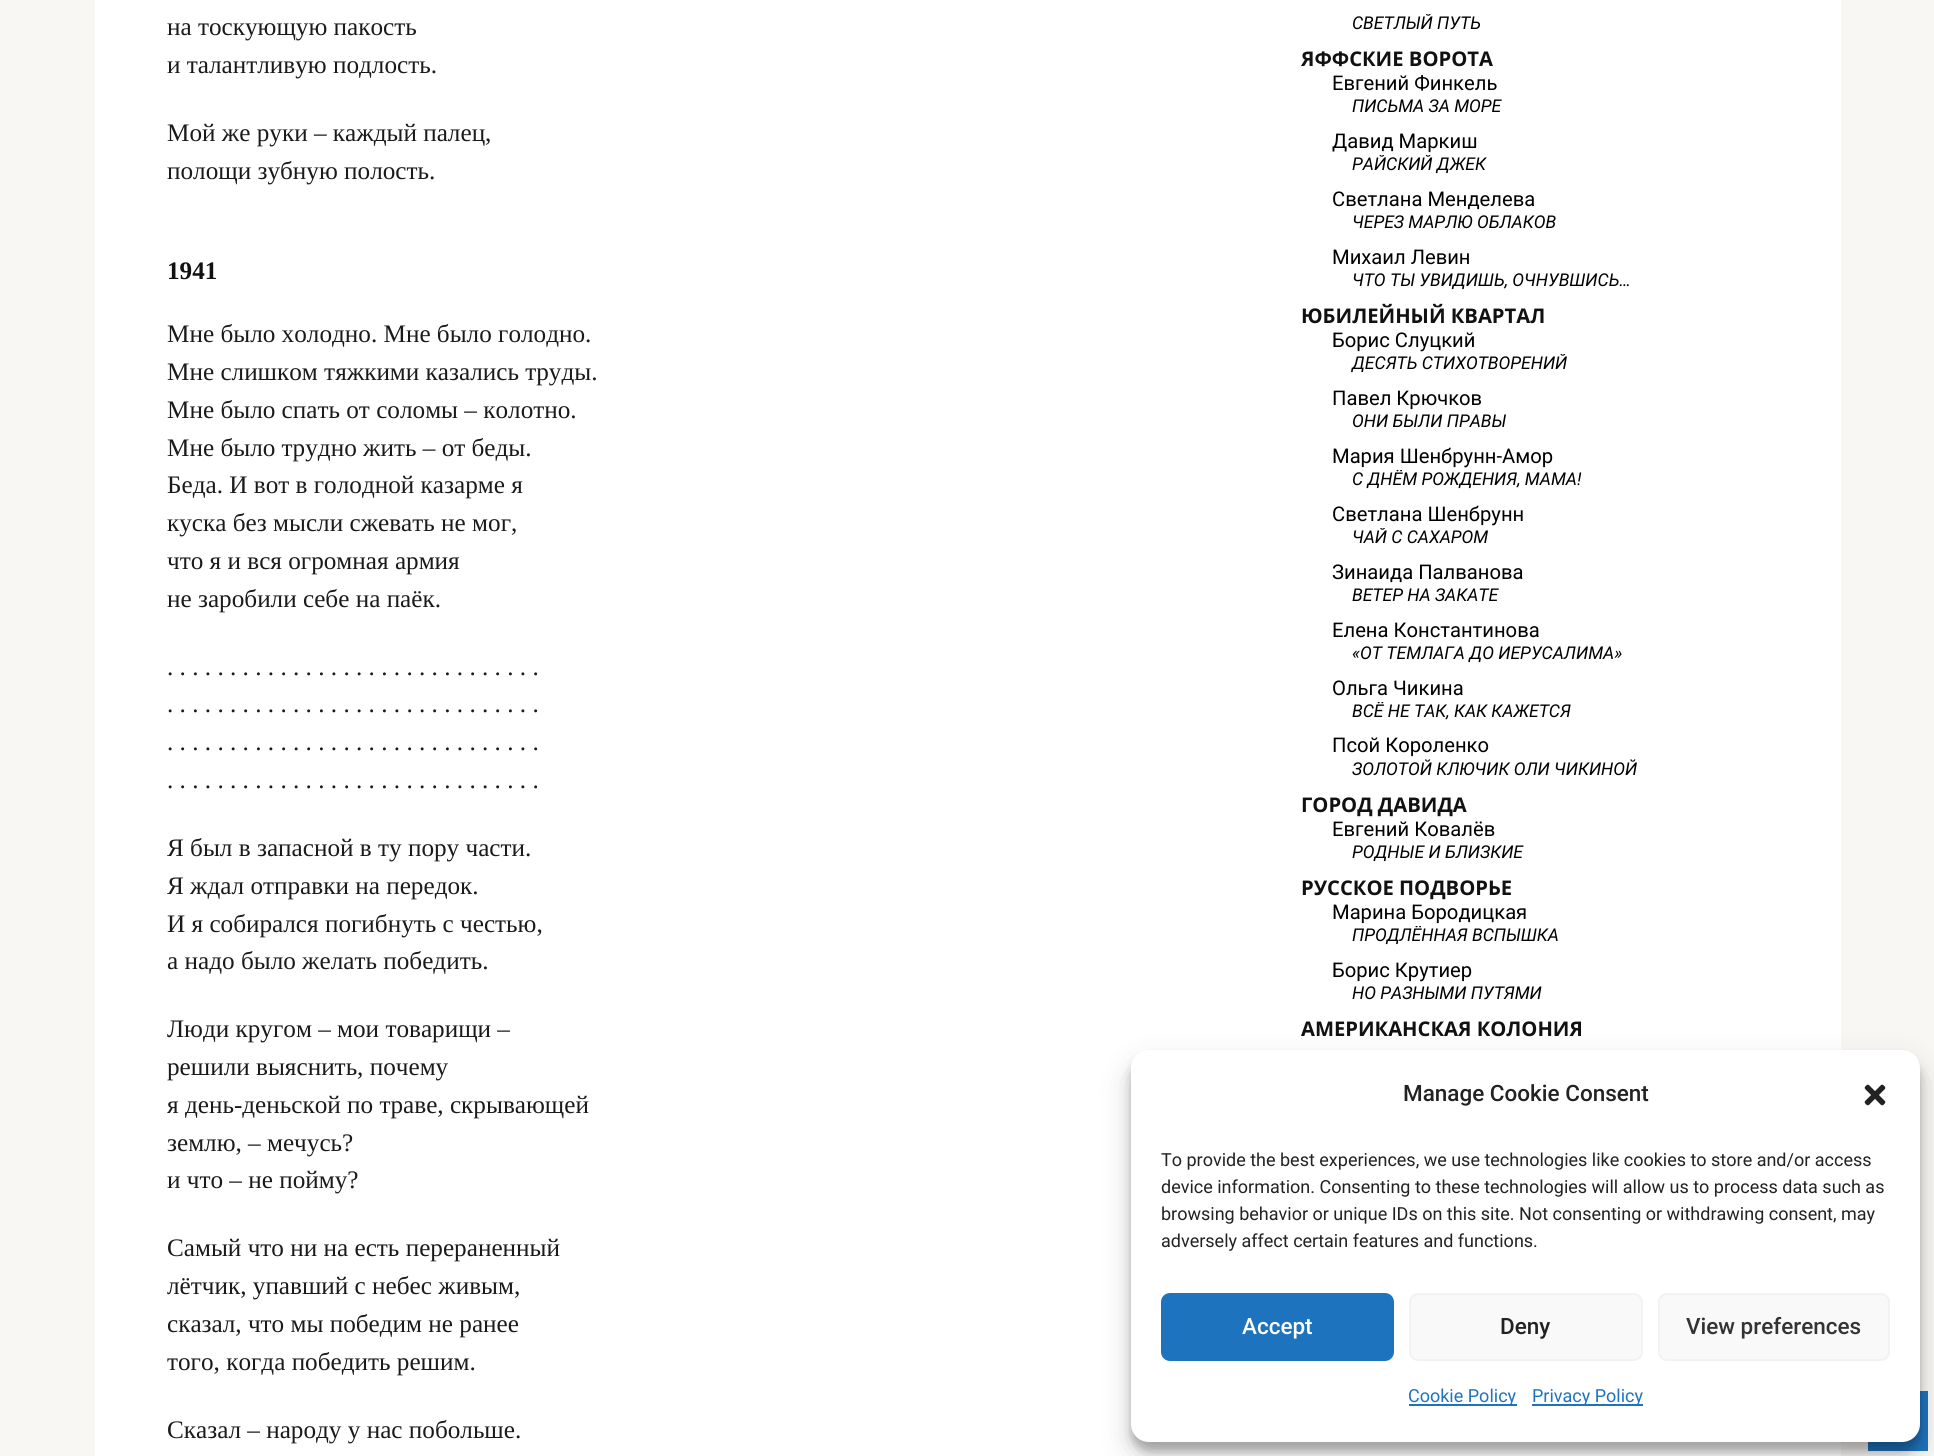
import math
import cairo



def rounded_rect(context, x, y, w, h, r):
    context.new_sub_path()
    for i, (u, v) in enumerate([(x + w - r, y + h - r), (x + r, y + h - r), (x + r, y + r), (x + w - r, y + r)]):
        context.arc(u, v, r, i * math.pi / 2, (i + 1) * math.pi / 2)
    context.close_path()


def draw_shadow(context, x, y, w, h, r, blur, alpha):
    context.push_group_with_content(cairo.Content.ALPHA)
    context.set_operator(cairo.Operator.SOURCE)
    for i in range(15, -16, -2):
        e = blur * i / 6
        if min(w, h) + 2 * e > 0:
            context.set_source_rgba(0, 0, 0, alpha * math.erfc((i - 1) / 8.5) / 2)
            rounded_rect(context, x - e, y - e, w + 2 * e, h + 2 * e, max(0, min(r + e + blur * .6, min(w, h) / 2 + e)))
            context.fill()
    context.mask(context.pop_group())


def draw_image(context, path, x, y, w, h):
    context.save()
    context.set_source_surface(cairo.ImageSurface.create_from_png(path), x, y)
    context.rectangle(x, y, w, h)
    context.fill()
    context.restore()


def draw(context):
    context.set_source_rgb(249 / 255, 247 / 255, 244 / 255)
    context.paint()
    context.set_source_rgb(1, 1, 1)
    context.rectangle(95, 0, 1746, 1456)
    context.fill()
    context.set_source_rgb(30 / 255, 115 / 255, 190 / 255)
    context.rectangle(1868, 1391, 60, 60)
    context.fill()
    context.set_source_rgb(0, 0, 0)
    draw_shadow(context, 1131, 1059, 789, 392, 18, 4.5, 0.23)
    draw_shadow(context, 1131, 1065, 789, 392, 18, 15, 0.19)
    context.set_source_rgb(1, 1, 1)
    rounded_rect(context, 1131, 1050, 789, 392, 18)
    context.fill()
    draw_image(context, "images/1.png", 1864, 1084, 22, 22)
    context.set_source_rgb(30 / 255, 115 / 255, 190 / 255)
    rounded_rect(context, 1162, 1294, 231, 66, 8)
    context.fill_preserve()
    context.stroke()
    context.set_source_rgb(249 / 255, 249 / 255, 249 / 255)
    rounded_rect(context, 1410, 1294, 232, 66, 8)
    context.fill_preserve()
    context.set_source_rgb(242 / 255, 242 / 255, 242 / 255)
    context.stroke()
    context.set_source_rgb(249 / 255, 249 / 255, 249 / 255)
    rounded_rect(context, 1659, 1294, 230, 66, 8)
    context.fill_preserve()
    context.set_source_rgb(242 / 255, 242 / 255, 242 / 255)
    context.stroke()
    context.set_source_rgb(30 / 255, 115 / 255, 190 / 255)
    context.rectangle(1409, 1404, 108, 2)
    context.fill()
    context.rectangle(1532, 1404, 111, 2)
    context.fill()
    context.select_font_face("Liberation Serif")
    context.set_font_size(25.2)
    context.set_source_rgb(26 / 255, 26 / 255, 26 / 255)
    context.move_to(167, 35)
    context.show_text("на тоскующую пакость")
    context.move_to(167, 73)
    context.show_text("и талантливую подлость.")
    context.move_to(167, 141)
    context.show_text("Мой же руки – каждый палец,")
    context.move_to(167, 179)
    context.show_text("полощи зубную полость.")
    context.select_font_face("Liberation Serif", cairo.FontSlant.NORMAL, cairo.FontWeight.BOLD)
    context.set_source_rgb(17 / 255, 17 / 255, 17 / 255)
    context.move_to(167, 279)
    context.show_text("1941")
    context.select_font_face("Liberation Serif")
    context.set_source_rgb(26 / 255, 26 / 255, 26 / 255)
    context.move_to(167, 342)
    context.show_text("Мне было холодно. Мне было голодно.")
    context.move_to(167, 380)
    context.show_text("Мне слишком тяжкими казались труды.")
    context.move_to(167, 418)
    context.show_text("Мне было спать от соломы – колотно.")
    context.move_to(167, 456)
    context.show_text("Мне было трудно жить – от беды.")
    context.move_to(167, 493)
    context.show_text("Беда. И вот в голодной казарме я")
    context.move_to(167, 531)
    context.show_text("куска без мысли сжевать не мог,")
    context.move_to(167, 569)
    context.show_text("что я и вся огромная армия")
    context.move_to(167, 607)
    context.show_text("не заробили себе на паёк.")
    context.move_to(167, 675)
    context.show_text(". . . . . . . . . . . . . . . . . . . . . . . . . . . . . .")
    context.move_to(167, 712)
    context.show_text(". . . . . . . . . . . . . . . . . . . . . . . . . . . . . .")
    context.move_to(167, 750)
    context.show_text(". . . . . . . . . . . . . . . . . . . . . . . . . . . . . .")
    context.move_to(167, 788)
    context.show_text(". . . . . . . . . . . . . . . . . . . . . . . . . . . . . .")
    context.move_to(167, 856)
    context.show_text("Я был в запасной в ту пору части.")
    context.move_to(167, 894)
    context.show_text("Я ждал отправки на передок.")
    context.move_to(167, 932)
    context.show_text("И я собирался погибнуть с честью,")
    context.move_to(167, 969)
    context.show_text("а надо было желать победить.")
    context.move_to(167, 1037)
    context.show_text("Люди кругом – мои товарищи –")
    context.move_to(167, 1075)
    context.show_text("решили выяснить, почему")
    context.move_to(167, 1113)
    context.show_text("я день-деньской по траве, скрывающей")
    context.move_to(167, 1151)
    context.show_text("землю, – мечусь?")
    context.move_to(167, 1188)
    context.show_text("и что – не пойму?")
    context.move_to(167, 1256)
    context.show_text("Самый что ни на есть перераненный")
    context.move_to(167, 1294)
    context.show_text("лётчик, упавший с небес живым,")
    context.move_to(167, 1332)
    context.show_text("сказал, что мы победим не ранее")
    context.move_to(167, 1370)
    context.show_text("того, когда победить решим.")
    context.move_to(167, 1438)
    context.show_text("Сказал – народу у нас побольше.")
    context.save()
    context.rectangle(1332, 14, 375, 21)
    context.clip()
    context.select_font_face("Roboto", cairo.FontSlant.ITALIC)
    context.set_font_size(17.6)
    context.set_source_rgb(0, 0, 0)
    context.move_to(1352, 29)
    context.show_text("СВЕТЛЫЙ ПУТЬ")
    context.restore()
    context.select_font_face("Open Sans", cairo.FontSlant.NORMAL, cairo.FontWeight.BOLD)
    context.set_font_size(20.2)
    context.set_source_rgb(17 / 255, 17 / 255, 17 / 255)
    context.move_to(1301, 66)
    context.show_text("ЯФФСКИЕ ВОРОТА")
    context.select_font_face("Roboto")
    context.set_source_rgb(0, 0, 0)
    context.move_to(1332, 90)
    context.show_text("Евгений Финкель")
    context.select_font_face("Roboto", cairo.FontSlant.ITALIC)
    context.set_font_size(17.6)
    context.move_to(1352, 112)
    context.show_text("ПИСЬМА ЗА МОРЕ")
    context.select_font_face("Roboto")
    context.set_font_size(20.2)
    context.move_to(1332, 148)
    context.show_text("Давид Маркиш")
    context.save()
    context.rectangle(1332, 155, 375, 21)
    context.clip()
    context.select_font_face("Roboto", cairo.FontSlant.ITALIC)
    context.set_font_size(17.6)
    context.move_to(1352, 170)
    context.show_text("РАЙСКИЙ ДЖЕК")
    context.restore()
    context.move_to(1332, 206)
    context.show_text("Светлана Менделева")
    context.select_font_face("Roboto", cairo.FontSlant.ITALIC)
    context.set_font_size(17.6)
    context.move_to(1352, 228)
    context.show_text("ЧЕРЕЗ МАРЛЮ ОБЛАКОВ")
    context.select_font_face("Roboto")
    context.set_font_size(20.2)
    context.move_to(1332, 264)
    context.show_text("Михаил Левин")
    context.select_font_face("Roboto", cairo.FontSlant.ITALIC)
    context.set_font_size(17.6)
    context.move_to(1352, 286)
    context.show_text("ЧТО ТЫ УВИДИШЬ, ОЧНУВШИСЬ…")
    context.select_font_face("Open Sans", cairo.FontSlant.NORMAL, cairo.FontWeight.BOLD)
    context.set_font_size(20.2)
    context.set_source_rgb(17 / 255, 17 / 255, 17 / 255)
    context.move_to(1301, 323)
    context.show_text("ЮБИЛЕЙНЫЙ КВАРТАЛ")
    context.select_font_face("Roboto")
    context.set_source_rgb(0, 0, 0)
    context.move_to(1332, 347)
    context.show_text("Борис Слуцкий")
    context.save()
    context.rectangle(1332, 354, 375, 21)
    context.clip()
    context.select_font_face("Roboto", cairo.FontSlant.ITALIC)
    context.set_font_size(17.6)
    context.move_to(1352, 369)
    context.show_text("ДЕСЯТЬ СТИХОТВОРЕНИЙ")
    context.restore()
    context.move_to(1332, 405)
    context.show_text("Павел Крючков")
    context.select_font_face("Roboto", cairo.FontSlant.ITALIC)
    context.set_font_size(17.6)
    context.move_to(1352, 427)
    context.show_text("ОНИ БЫЛИ ПРАВЫ")
    context.select_font_face("Roboto")
    context.set_font_size(20.2)
    context.move_to(1332, 463)
    context.show_text("Мария Шенбрунн-Амор")
    context.save()
    context.rectangle(1332, 470, 375, 21)
    context.clip()
    context.select_font_face("Roboto", cairo.FontSlant.ITALIC)
    context.set_font_size(17.6)
    context.move_to(1352, 485)
    context.show_text("С ДНЁМ РОЖДЕНИЯ, МАМА!")
    context.restore()
    context.move_to(1332, 521)
    context.show_text("Светлана Шенбрунн")
    context.save()
    context.rectangle(1332, 528, 375, 20)
    context.clip()
    context.select_font_face("Roboto", cairo.FontSlant.ITALIC)
    context.set_font_size(17.6)
    context.move_to(1352, 543)
    context.show_text("ЧАЙ С САХАРОМ")
    context.restore()
    context.move_to(1332, 579)
    context.show_text("Зинаида Палванова")
    context.select_font_face("Roboto", cairo.FontSlant.ITALIC)
    context.set_font_size(17.6)
    context.move_to(1352, 601)
    context.show_text("ВЕТЕР НА ЗАКАТЕ")
    context.select_font_face("Roboto")
    context.set_font_size(20.2)
    context.move_to(1332, 637)
    context.show_text("Елена Константинова")
    context.select_font_face("Roboto", cairo.FontSlant.ITALIC)
    context.set_font_size(17.6)
    context.move_to(1352, 659)
    context.show_text("«ОТ ТЕМЛАГА ДО ИЕРУСАЛИМА»")
    context.select_font_face("Roboto")
    context.set_font_size(20.2)
    context.move_to(1332, 695)
    context.show_text("Ольга Чикина")
    context.save()
    context.rectangle(1332, 702, 375, 20)
    context.clip()
    context.select_font_face("Roboto", cairo.FontSlant.ITALIC)
    context.set_font_size(17.6)
    context.move_to(1352, 717)
    context.show_text("ВСЁ НЕ ТАК, КАК КАЖЕТСЯ")
    context.restore()
    context.move_to(1332, 752)
    context.show_text("Псой Короленко")
    context.select_font_face("Roboto", cairo.FontSlant.ITALIC)
    context.set_font_size(17.6)
    context.move_to(1352, 775)
    context.show_text("ЗОЛОТОЙ КЛЮЧИК ОЛИ ЧИКИНОЙ")
    context.select_font_face("Open Sans", cairo.FontSlant.NORMAL, cairo.FontWeight.BOLD)
    context.set_font_size(20.2)
    context.set_source_rgb(17 / 255, 17 / 255, 17 / 255)
    context.move_to(1301, 812)
    context.show_text("ГОРОД ДАВИДА")
    context.select_font_face("Roboto")
    context.set_source_rgb(0, 0, 0)
    context.move_to(1332, 836)
    context.show_text("Евгений Ковалёв")
    context.select_font_face("Roboto", cairo.FontSlant.ITALIC)
    context.set_font_size(17.6)
    context.move_to(1352, 858)
    context.show_text("РОДНЫЕ И БЛИЗКИЕ")
    context.select_font_face("Open Sans", cairo.FontSlant.NORMAL, cairo.FontWeight.BOLD)
    context.set_font_size(20.2)
    context.set_source_rgb(17 / 255, 17 / 255, 17 / 255)
    context.move_to(1301, 895)
    context.show_text("РУССКОЕ ПОДВОРЬЕ")
    context.select_font_face("Roboto")
    context.set_source_rgb(0, 0, 0)
    context.move_to(1332, 919)
    context.show_text("Марина Бородицкая")
    context.save()
    context.rectangle(1332, 926, 375, 21)
    context.clip()
    context.select_font_face("Roboto", cairo.FontSlant.ITALIC)
    context.set_font_size(17.6)
    context.move_to(1352, 941)
    context.show_text("ПРОДЛЁННАЯ ВСПЫШКА")
    context.restore()
    context.move_to(1332, 977)
    context.show_text("Борис Крутиер")
    context.select_font_face("Roboto", cairo.FontSlant.ITALIC)
    context.set_font_size(17.6)
    context.move_to(1352, 999)
    context.show_text("НО РАЗНЫМИ ПУТЯМИ")
    context.select_font_face("Open Sans", cairo.FontSlant.NORMAL, cairo.FontWeight.BOLD)
    context.set_font_size(20.2)
    context.set_source_rgb(17 / 255, 17 / 255, 17 / 255)
    context.move_to(1301, 1036)
    context.show_text("АМЕРИКАНСКАЯ КОЛОНИЯ")
    context.select_font_face("Roboto Medium")
    context.set_font_size(22.5)
    context.set_source_rgb(34 / 255, 34 / 255, 34 / 255)
    context.move_to(1403, 1101)
    context.show_text("Manage Cookie Consent")
    context.select_font_face("Roboto")
    context.set_font_size(18)
    context.move_to(1161, 1166)
    context.show_text("To provide the best experiences, we use technologies like cookies to store and/or access")
    context.move_to(1161, 1193)
    context.show_text("device information. Consenting to these technologies will allow us to process data such as")
    context.move_to(1161, 1220)
    context.show_text("browsing behavior or unique IDs on this site. Not consenting or withdrawing consent, may")
    context.move_to(1161, 1247)
    context.show_text("adversely affect certain features and functions.")
    context.select_font_face("Roboto Medium")
    context.set_font_size(22.5)
    context.set_source_rgb(1, 1, 1)
    context.move_to(1242, 1334)
    context.show_text("Accept")
    context.set_source_rgb(34 / 255, 34 / 255, 34 / 255)
    context.move_to(1500, 1334)
    context.show_text("Deny")
    context.set_source_rgb(51 / 255, 51 / 255, 51 / 255)
    context.move_to(1686, 1334)
    context.show_text("View preferences")
    context.select_font_face("Roboto")
    context.set_font_size(18)
    context.set_source_rgb(30 / 255, 115 / 255, 190 / 255)
    context.move_to(1408, 1402)
    context.show_text("Cookie Policy")
    context.move_to(1532, 1402)
    context.show_text("Privacy Policy")


surface = cairo.ImageSurface(cairo.Format.RGB24, 1934, 1456)
context = cairo.Context(surface)
options = cairo.FontOptions()
options.set_hint_metrics(cairo.HintMetrics.OFF)
options.set_hint_style(cairo.HintStyle.NONE)
context.set_font_options(options)
context.set_miter_limit(4)
draw(context)
surface.write_to_png("out.png")
